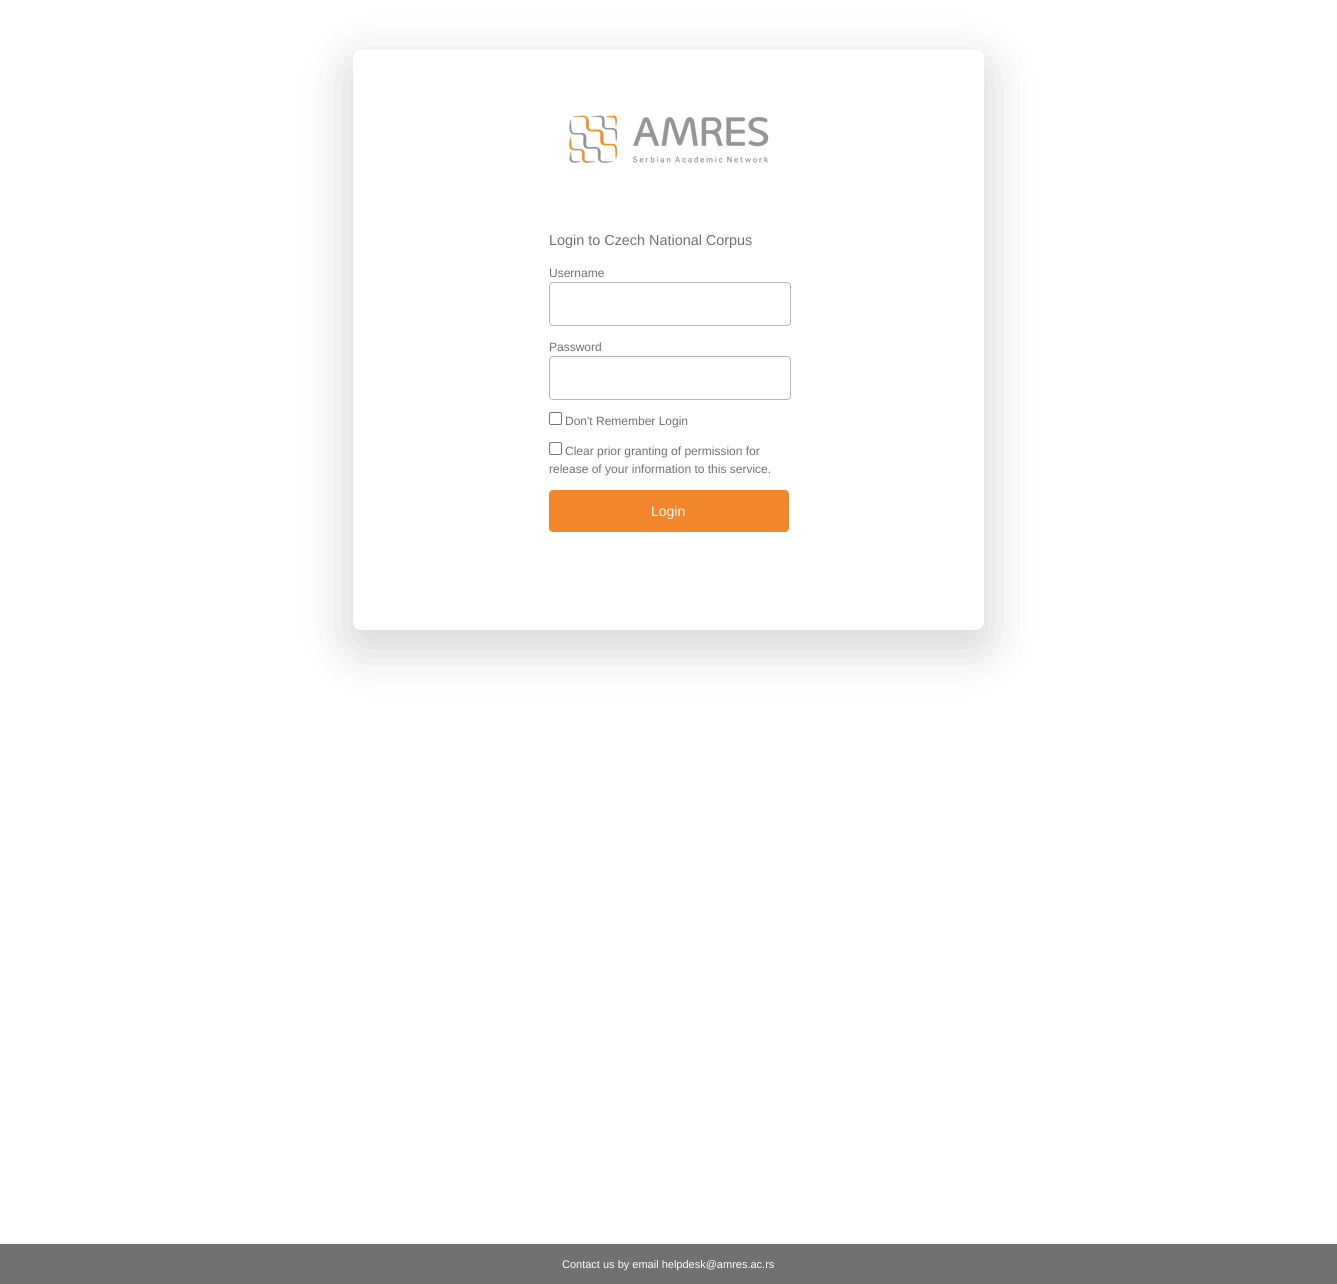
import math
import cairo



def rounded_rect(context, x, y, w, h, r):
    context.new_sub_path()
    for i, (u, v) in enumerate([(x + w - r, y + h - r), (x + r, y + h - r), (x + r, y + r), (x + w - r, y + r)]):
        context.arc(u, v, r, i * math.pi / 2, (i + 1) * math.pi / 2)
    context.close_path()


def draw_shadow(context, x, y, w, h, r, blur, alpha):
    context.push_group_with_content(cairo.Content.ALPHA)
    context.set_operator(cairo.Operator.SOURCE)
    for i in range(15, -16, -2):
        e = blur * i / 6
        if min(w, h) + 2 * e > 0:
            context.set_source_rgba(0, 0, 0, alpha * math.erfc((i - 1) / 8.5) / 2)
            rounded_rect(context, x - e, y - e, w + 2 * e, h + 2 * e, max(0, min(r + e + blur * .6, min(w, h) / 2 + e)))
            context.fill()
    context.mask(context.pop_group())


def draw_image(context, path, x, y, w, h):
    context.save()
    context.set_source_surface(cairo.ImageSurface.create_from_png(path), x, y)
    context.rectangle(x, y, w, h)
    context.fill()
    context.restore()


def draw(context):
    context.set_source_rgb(113 / 255, 113 / 255, 113 / 255)
    context.paint()
    context.set_source_rgb(1, 1, 1)
    context.rectangle(0, 0, 1337, 1244)
    context.fill()
    context.set_source_rgb(0, 0, 0)
    draw_shadow(context, 345, 58, 647, 596, 16, 24, 0.15)
    context.set_source_rgb(1, 1, 1)
    rounded_rect(context, 353, 50, 631, 580, 8)
    context.fill()
    draw_image(context, "images/1.png", 569, 115, 200, 48)
    rounded_rect(context, 549.5, 282.5, 241, 43, 3.5)
    context.set_source_rgb(183 / 255, 183 / 255, 183 / 255)
    context.set_line_width(1)
    context.stroke()
    rounded_rect(context, 549.5, 356.5, 241, 43, 3.5)
    context.stroke()
    rounded_rect(context, 549.5, 412.5, 12, 12, 1.5)
    context.set_source_rgb(118 / 255, 118 / 255, 118 / 255)
    context.stroke()
    rounded_rect(context, 549.5, 442.5, 12, 12, 1.5)
    context.stroke()
    context.set_source_rgb(241 / 255, 134 / 255, 45 / 255)
    rounded_rect(context, 549, 490, 240, 42, 4)
    context.fill()
    context.select_font_face("Liberation Sans")
    context.set_font_size(14.4)
    context.set_source_rgb(113 / 255, 113 / 255, 113 / 255)
    context.move_to(549, 245)
    context.show_text("Login to Czech National Corpus")
    context.set_font_size(12)
    context.move_to(549, 277)
    context.show_text("Username")
    context.move_to(549, 351)
    context.show_text("Password")
    context.move_to(565, 425)
    context.show_text("Don't Remember Login")
    context.move_to(565, 455)
    context.show_text("Clear prior granting of permission for")
    context.move_to(549, 473)
    context.show_text("release of your information to this service.")
    context.set_font_size(14)
    context.set_source_rgb(1, 1, 1)
    context.move_to(651, 516)
    context.show_text("Login")
    context.set_font_size(11)
    context.move_to(562, 1268)
    context.show_text("Contact us by email helpdesk@amres.ac.rs")


surface = cairo.ImageSurface(cairo.Format.RGB24, 1337, 1284)
context = cairo.Context(surface)
options = cairo.FontOptions()
options.set_hint_metrics(cairo.HintMetrics.OFF)
options.set_hint_style(cairo.HintStyle.NONE)
context.set_font_options(options)
context.set_miter_limit(4)
draw(context)
surface.write_to_png("out.png")
